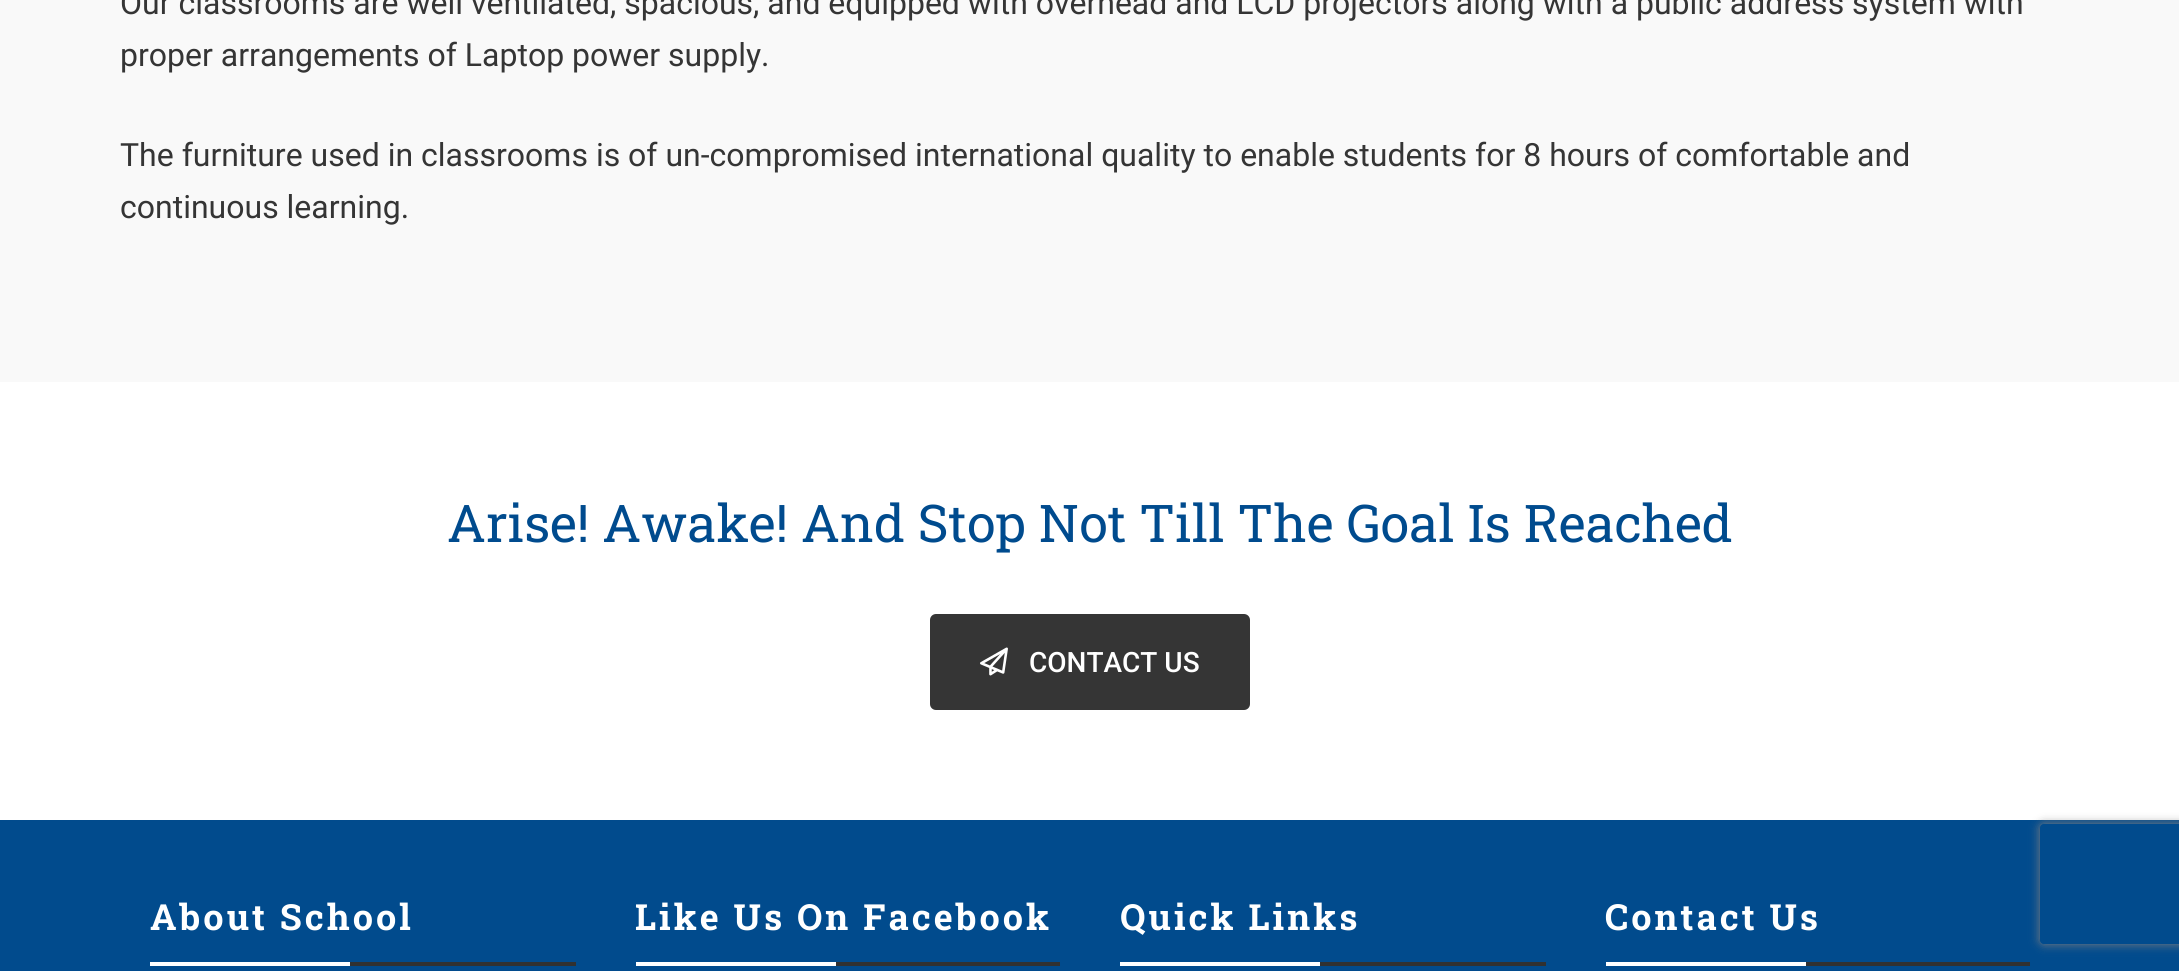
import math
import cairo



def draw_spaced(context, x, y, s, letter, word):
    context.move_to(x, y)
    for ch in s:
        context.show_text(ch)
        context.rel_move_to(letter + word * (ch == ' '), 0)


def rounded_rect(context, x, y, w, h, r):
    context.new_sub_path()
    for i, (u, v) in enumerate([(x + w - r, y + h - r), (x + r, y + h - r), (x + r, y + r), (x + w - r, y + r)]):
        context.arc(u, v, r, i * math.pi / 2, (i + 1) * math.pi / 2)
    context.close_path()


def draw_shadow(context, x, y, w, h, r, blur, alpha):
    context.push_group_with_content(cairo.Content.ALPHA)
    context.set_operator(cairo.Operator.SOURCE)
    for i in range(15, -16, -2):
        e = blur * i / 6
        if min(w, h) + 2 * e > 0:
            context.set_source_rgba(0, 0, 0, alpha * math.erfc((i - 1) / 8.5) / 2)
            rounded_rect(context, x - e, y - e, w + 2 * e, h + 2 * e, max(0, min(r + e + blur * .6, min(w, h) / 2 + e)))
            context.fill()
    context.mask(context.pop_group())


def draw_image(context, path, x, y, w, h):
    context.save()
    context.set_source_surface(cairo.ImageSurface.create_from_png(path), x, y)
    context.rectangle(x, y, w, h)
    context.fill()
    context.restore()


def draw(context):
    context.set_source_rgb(1, 1, 1)
    context.paint()
    context.set_source_rgb(249 / 255, 249 / 255, 249 / 255)
    context.rectangle(0, 0, 2179, 382)
    context.fill()
    context.set_source_rgb(53 / 255, 53 / 255, 53 / 255)
    rounded_rect(context, 930, 614, 320, 96, 6)
    context.fill()
    draw_image(context, "images/1.png", 980, 647, 28, 29)
    context.set_source_rgb(1 / 255, 75 / 255, 141 / 255)
    context.rectangle(0, 820, 2179, 151)
    context.fill()
    context.set_source_rgb(49 / 255, 49 / 255, 49 / 255)
    context.rectangle(350, 962, 226, 4)
    context.fill()
    context.set_source_rgb(1, 1, 1)
    context.rectangle(150, 962, 200, 4)
    context.fill()
    context.set_source_rgb(49 / 255, 49 / 255, 49 / 255)
    context.rectangle(836, 962, 224, 4)
    context.fill()
    context.set_source_rgb(1, 1, 1)
    context.rectangle(636, 962, 200, 4)
    context.fill()
    context.set_source_rgb(49 / 255, 49 / 255, 49 / 255)
    context.rectangle(1320, 962, 226, 4)
    context.fill()
    context.set_source_rgb(1, 1, 1)
    context.rectangle(1120, 962, 200, 4)
    context.fill()
    context.set_source_rgb(49 / 255, 49 / 255, 49 / 255)
    context.rectangle(1806, 962, 224, 4)
    context.fill()
    context.set_source_rgb(1, 1, 1)
    context.rectangle(1606, 962, 200, 4)
    context.fill()
    context.save()
    context.set_fill_rule(cairo.FillRule.EVEN_ODD)
    context.new_path()
    context.move_to(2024, 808)
    context.line_to(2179, 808)
    context.line_to(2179, 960)
    context.line_to(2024, 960)
    context.close_path()
    context.move_to(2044, 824)
    context.line_to(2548, 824)
    context.curve_to(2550, 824, 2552, 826, 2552, 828)
    context.line_to(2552, 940)
    context.curve_to(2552, 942, 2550, 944, 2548, 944)
    context.line_to(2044, 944)
    context.curve_to(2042, 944, 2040, 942, 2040, 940)
    context.line_to(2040, 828)
    context.curve_to(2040, 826, 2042, 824, 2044, 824)
    context.close_path()
    context.clip()
    context.set_source_rgb(128 / 255, 128 / 255, 128 / 255)
    draw_shadow(context, 2040, 824, 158, 120, 4, 5, 1)
    context.restore()
    context.select_font_face("Roboto")
    context.set_font_size(32)
    context.set_source_rgb(53 / 255, 53 / 255, 53 / 255)
    context.move_to(120, 14)
    context.show_text("Our classrooms are well ventilated, spacious, and equipped with overhead and LCD projectors along with a public address system with")
    context.move_to(120, 66)
    context.show_text("proper arrangements of Laptop power supply.")
    context.move_to(120, 166)
    context.show_text("The furniture used in classrooms is of un-compromised international quality to enable students for 8 hours of comfortable and")
    context.move_to(120, 218)
    context.show_text("continuous learning.")
    context.select_font_face("Roboto Slab")
    context.set_font_size(52)
    context.set_source_rgb(0, 75 / 255, 142 / 255)
    context.move_to(447, 542)
    context.show_text("Arise! Awake! And Stop Not Till The Goal Is Reached")
    context.select_font_face("Roboto Medium")
    context.set_font_size(28)
    context.set_source_rgb(1, 1, 1)
    context.move_to(1029, 672)
    context.show_text("CONTACT US")
    context.select_font_face("Roboto Slab", cairo.FontSlant.NORMAL, cairo.FontWeight.BOLD)
    context.set_font_size(36)
    draw_spaced(context, 150, 930, "About School", 3, 0)
    draw_spaced(context, 635, 930, "Like Us On Facebook", 3, 0)
    draw_spaced(context, 1120, 930, "Quick Links", 3, 0)
    draw_spaced(context, 1605, 930, "Contact Us", 3, 0)


surface = cairo.ImageSurface(cairo.Format.RGB24, 2179, 971)
context = cairo.Context(surface)
options = cairo.FontOptions()
options.set_hint_metrics(cairo.HintMetrics.OFF)
options.set_hint_style(cairo.HintStyle.NONE)
context.set_font_options(options)
context.set_miter_limit(4)
draw(context)
surface.write_to_png("out.png")
